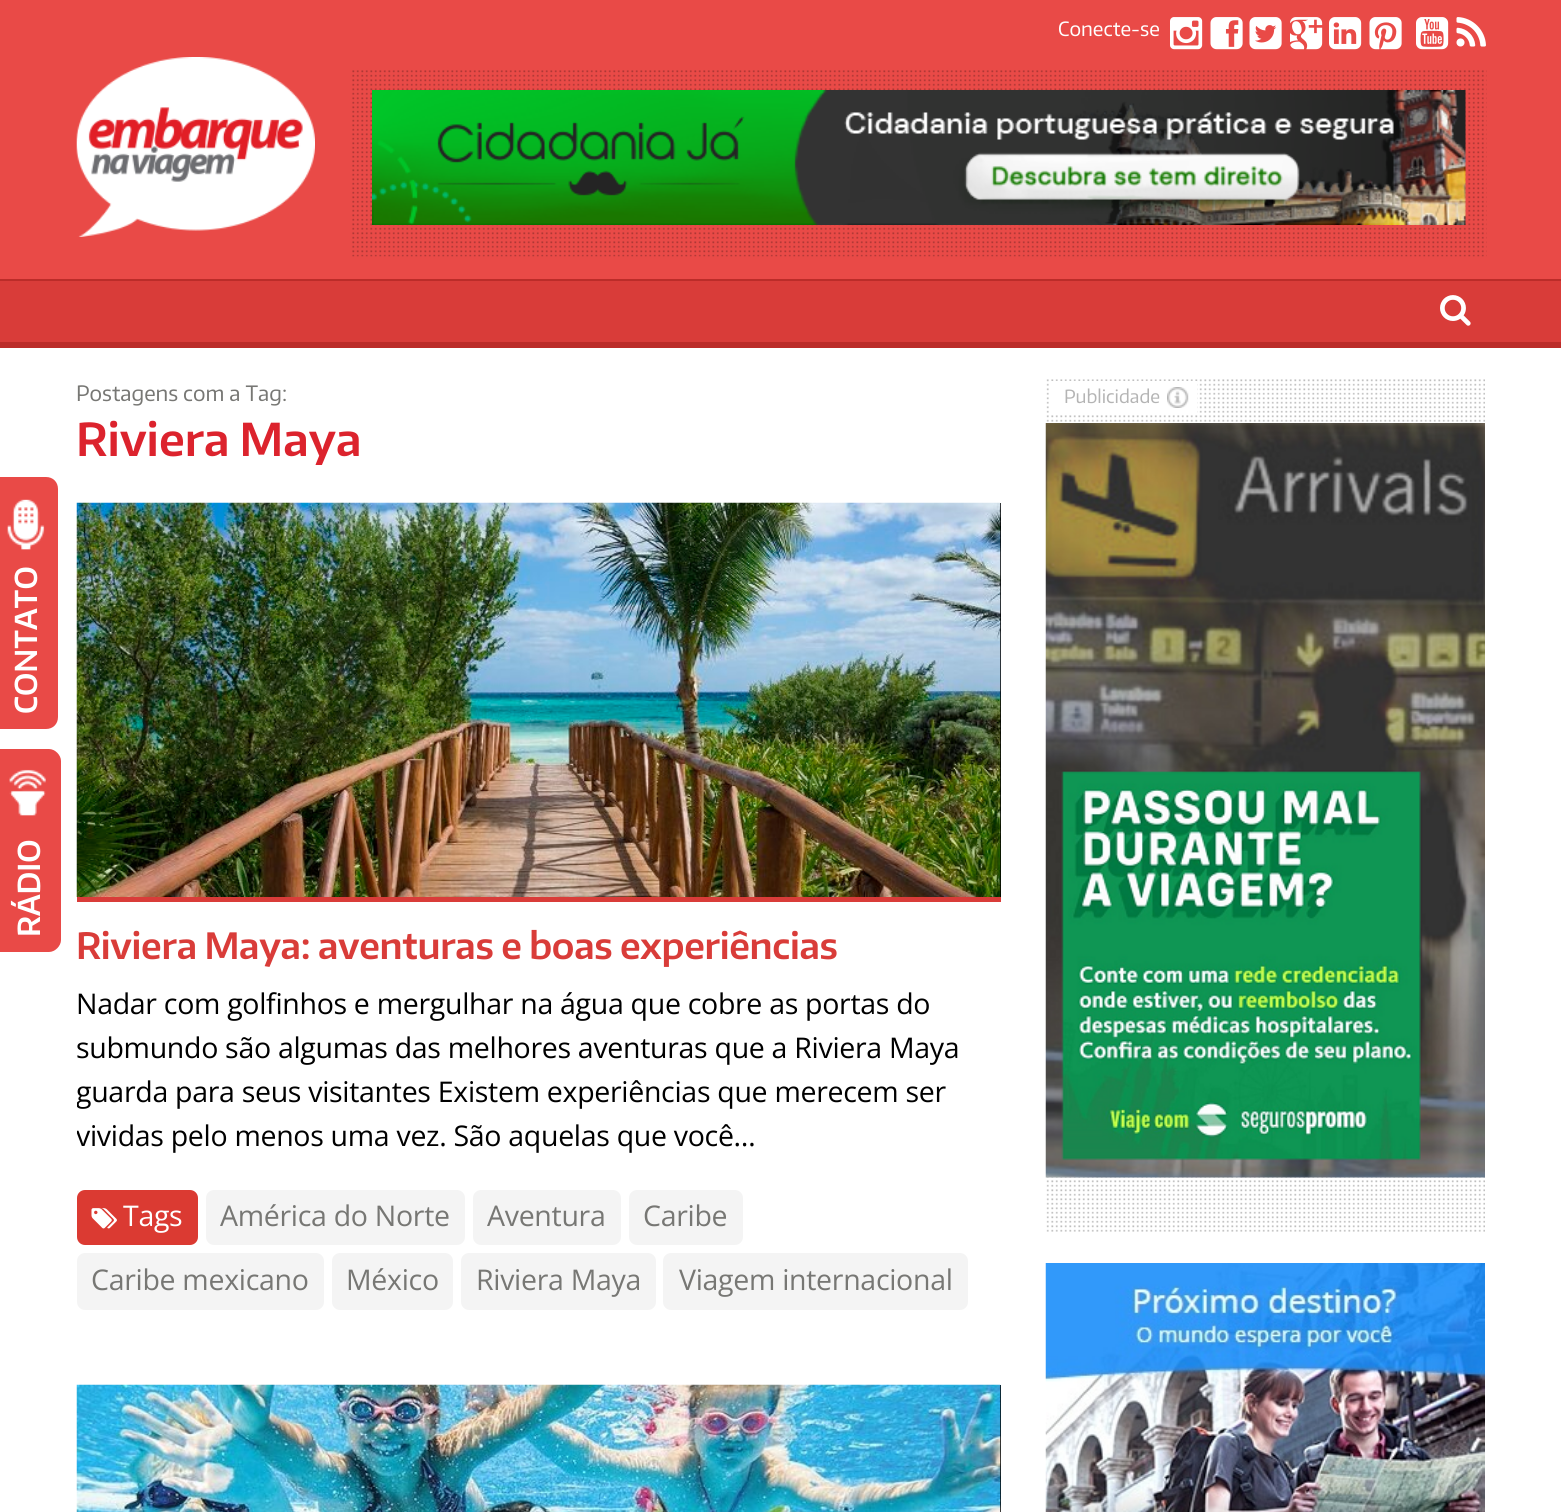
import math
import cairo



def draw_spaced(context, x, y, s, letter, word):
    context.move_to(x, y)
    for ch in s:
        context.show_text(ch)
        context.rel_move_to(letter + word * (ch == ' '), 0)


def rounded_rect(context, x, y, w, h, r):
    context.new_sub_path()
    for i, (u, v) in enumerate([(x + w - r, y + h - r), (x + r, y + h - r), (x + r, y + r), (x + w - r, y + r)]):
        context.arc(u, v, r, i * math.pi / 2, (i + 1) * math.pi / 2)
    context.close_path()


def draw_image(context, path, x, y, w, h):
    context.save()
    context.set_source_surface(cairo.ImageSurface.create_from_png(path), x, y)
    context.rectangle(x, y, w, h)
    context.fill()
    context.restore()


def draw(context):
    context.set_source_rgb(1, 1, 1)
    context.paint()
    context.set_source_rgb(233 / 255, 74 / 255, 71 / 255)
    context.rectangle(0, 0, 1561, 279)
    context.fill()
    draw_image(context, "images/1.png", 1170, 17, 33, 33)
    draw_image(context, "images/2.png", 1210, 17, 33, 33)
    draw_image(context, "images/3.png", 1249, 17, 33, 33)
    draw_image(context, "images/4.png", 1290, 17, 33, 33)
    draw_image(context, "images/5.png", 1329, 17, 33, 33)
    draw_image(context, "images/6.png", 1369, 17, 33, 33)
    draw_image(context, "images/7.png", 1416, 17, 33, 33)
    draw_image(context, "images/8.png", 1456, 17, 30, 30)
    draw_image(context, "images/9.png", 76, 57, 239, 180)
    draw_image(context, "images/10.png", 352, 70, 1135, 187)
    draw_image(context, "images/11.png", 372, 90, 1094, 135)
    context.set_source_rgb(217 / 255, 60 / 255, 57 / 255)
    context.rectangle(0, 281, 1561, 61)
    context.fill()
    context.set_source_rgb(187 / 255, 44 / 255, 41 / 255)
    context.rectangle(0, 279, 1561, 2)
    context.fill()
    context.rectangle(0, 342, 1561, 6)
    context.fill()
    draw_image(context, "images/12.png", 1440, 295, 31, 31)
    context.set_source_rgb(233 / 255, 74 / 255, 71 / 255)
    context.new_path()
    context.move_to(-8, 729)
    context.line_to(-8, 477)
    context.line_to(46, 477)
    context.curve_to(53, 477, 58, 482, 58, 489)
    context.line_to(58, 717)
    context.curve_to(58, 724, 53, 729, 46, 729)
    context.close_path()
    context.fill()
    draw_image(context, "images/13.png", 7, 499, 38, 51)
    context.set_source_rgb(0, 0, 0)
    context.rectangle(1000, 503, 1, 394)
    context.fill()
    context.set_source_rgb(217 / 255, 60 / 255, 57 / 255)
    context.rectangle(77, 897, 924, 5)
    context.fill()
    draw_image(context, "images/14.png", 76, 502, 925, 395)
    context.set_source_rgb(219 / 255, 58 / 255, 50 / 255)
    rounded_rect(context, 77, 1190, 121, 55, 8)
    context.fill()
    draw_image(context, "images/15.png", 91, 1208, 26, 21)
    context.set_source_rgb(244 / 255, 244 / 255, 244 / 255)
    rounded_rect(context, 206, 1190, 259, 55, 8)
    context.fill()
    rounded_rect(context, 473, 1190, 148, 55, 8)
    context.fill()
    rounded_rect(context, 629, 1190, 114, 55, 8)
    context.fill()
    rounded_rect(context, 77, 1253, 247, 57, 8)
    context.fill()
    rounded_rect(context, 332, 1253, 121, 57, 8)
    context.fill()
    rounded_rect(context, 461, 1253, 195, 57, 8)
    context.fill()
    rounded_rect(context, 663, 1253, 305, 57, 8)
    context.fill()
    context.set_source_rgb(0, 0, 0)
    context.rectangle(1000, 1385, 1, 127)
    context.fill()
    draw_image(context, "images/16.png", 76, 1384, 925, 128)
    draw_image(context, "images/17.png", 1046, 379, 439, 853)
    context.set_source_rgb(1, 1, 1)
    context.rectangle(1051, 381, 146, 32)
    context.fill()
    draw_image(context, "images/18.png", 1167, 387, 22, 21)
    draw_image(context, "images/19.png", 1045, 423, 440, 755)
    draw_image(context, "images/20.png", 1045, 1263, 440, 249)
    context.set_source_rgb(233 / 255, 74 / 255, 71 / 255)
    context.new_path()
    context.move_to(-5, 952)
    context.line_to(-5, 749)
    context.line_to(49, 749)
    context.curve_to(55, 749, 61, 755, 61, 761)
    context.line_to(61, 940)
    context.curve_to(61, 946, 55, 952, 49, 952)
    context.close_path()
    context.fill()
    draw_image(context, "images/21.png", 9, 769, 37, 47)
    context.select_font_face("Encode Sans")
    context.set_font_size(19.5)
    context.set_source_rgb(1, 1, 1)
    context.move_to(1058, 36)
    context.show_text("Conecte-se")
    context.select_font_face("Encode Sans SemiBold")
    context.set_font_size(30)
    context.save()
    context.translate(37, 714)
    context.rotate(-90 * math.pi / 180)
    context.move_to(0, 0)
    context.show_text("CONTATO")
    context.restore()
    context.select_font_face("Encode Sans")
    context.set_font_size(21)
    context.set_source_rgb(119 / 255, 119 / 255, 116 / 255)
    context.move_to(76, 401)
    context.show_text("Postagens com a Tag:")
    context.save()
    context.rectangle(77, 378, 924, 87)
    context.clip()
    context.select_font_face("Encode Sans SemiBold")
    context.set_font_size(45)
    context.set_source_rgb(220 / 255, 35 / 255, 45 / 255)
    context.move_to(76, 456)
    context.show_text("Riviera Maya")
    context.restore()
    context.select_font_face("Encode Sans SemiBold")
    context.set_font_size(36)
    context.set_source_rgb(217 / 255, 60 / 255, 57 / 255)
    draw_spaced(context, 76, 959, "Riviera Maya: aventuras e boas experiências", -0.3, 0)
    context.select_font_face("Open Sans")
    context.set_font_size(28.5)
    context.set_source_rgb(0, 0, 0)
    draw_spaced(context, 76, 1014, "Nadar com golfinhos e mergulhar na água que cobre as portas do", -0.3, 0)
    draw_spaced(context, 76, 1058, "submundo são algumas das melhores aventuras que a Riviera Maya", -0.3, 0)
    context.save()
    context.rectangle(77, 495, 924, 852)
    context.clip()
    draw_spaced(context, 76, 1102, "guarda para seus visitantes Existem experiências que merecem ser", -0.3, 0)
    draw_spaced(context, 76, 1146, "vividas pelo menos uma vez. São aquelas que você…", -0.3, 0)
    context.restore()
    context.set_source_rgb(1, 1, 1)
    draw_spaced(context, 123, 1226, "Tags", -0.3, 0)
    context.set_source_rgb(119 / 255, 119 / 255, 116 / 255)
    draw_spaced(context, 220, 1226, "América do Norte", -0.3, 0)
    draw_spaced(context, 487, 1226, "Aventura", -0.3, 0)
    draw_spaced(context, 643, 1226, "Caribe", -0.3, 0)
    draw_spaced(context, 91, 1290, "Caribe mexicano", -0.3, 0)
    draw_spaced(context, 346, 1290, "México", -0.3, 0)
    draw_spaced(context, 476, 1290, "Riviera Maya", -0.3, 0)
    draw_spaced(context, 679, 1290, "Viagem internacional", -0.3, 0)
    context.select_font_face("Encode Sans")
    context.set_font_size(18)
    context.set_source_rgb(180 / 255, 180 / 255, 180 / 255)
    context.move_to(1064, 403)
    context.show_text("Publicidade")
    context.select_font_face("Encode Sans SemiBold")
    context.set_font_size(30)
    context.set_source_rgb(1, 1, 1)
    context.save()
    context.translate(40, 937)
    context.rotate(-90 * math.pi / 180)
    context.move_to(0, 0)
    context.show_text("RÁDIO")
    context.restore()


surface = cairo.ImageSurface(cairo.Format.RGB24, 1561, 1512)
context = cairo.Context(surface)
options = cairo.FontOptions()
options.set_hint_metrics(cairo.HintMetrics.OFF)
options.set_hint_style(cairo.HintStyle.NONE)
context.set_font_options(options)
context.set_miter_limit(4)
draw(context)
surface.write_to_png("out.png")
